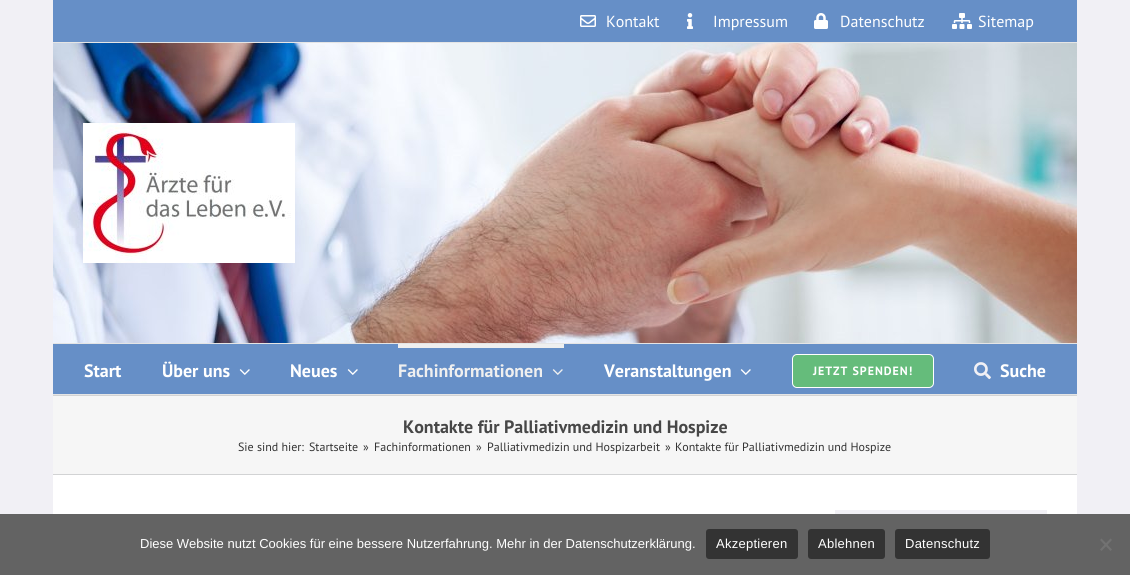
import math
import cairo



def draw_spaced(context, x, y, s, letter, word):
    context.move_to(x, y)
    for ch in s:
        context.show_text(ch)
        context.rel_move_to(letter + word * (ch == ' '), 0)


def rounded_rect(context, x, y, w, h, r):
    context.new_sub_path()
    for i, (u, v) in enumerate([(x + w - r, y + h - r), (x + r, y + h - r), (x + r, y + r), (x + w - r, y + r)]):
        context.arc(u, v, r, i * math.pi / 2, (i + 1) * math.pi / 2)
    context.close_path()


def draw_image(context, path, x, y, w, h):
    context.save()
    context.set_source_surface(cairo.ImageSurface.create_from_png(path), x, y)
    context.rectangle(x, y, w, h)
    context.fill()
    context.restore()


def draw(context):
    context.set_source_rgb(241 / 255, 240 / 255, 245 / 255)
    context.paint()
    context.set_source_rgb(102 / 255, 143 / 255, 199 / 255)
    context.rectangle(53, 0, 1024, 42)
    context.fill()
    context.set_source_rgb(229 / 255, 229 / 255, 229 / 255)
    context.rectangle(53, 42, 1024, 1)
    context.fill()
    draw_image(context, "images/1.png", 580, 15, 16, 12)
    draw_image(context, "images/2.png", 687, 13, 6, 16)
    draw_image(context, "images/3.png", 814, 13, 14, 16)
    draw_image(context, "images/4.png", 952, 13, 20, 16)
    draw_image(context, "images/5.png", 53, 43, 1024, 300)
    context.rectangle(53, 343, 1024, 1)
    context.fill()
    draw_image(context, "images/6.png", 83, 123, 212, 140)
    context.set_source_rgb(102 / 255, 143 / 255, 199 / 255)
    context.rectangle(53, 344, 1024, 50)
    context.fill()
    context.set_source_rgb(229 / 255, 229 / 255, 229 / 255)
    context.rectangle(53, 394, 1024, 1)
    context.fill()
    draw_image(context, "images/7.png", 239, 369, 11, 6)
    draw_image(context, "images/7.png", 347, 369, 11, 6)
    context.set_source_rgb(239 / 255, 239 / 255, 239 / 255)
    context.rectangle(398, 344, 166, 4)
    context.fill()
    draw_image(context, "images/8.png", 552, 369, 11, 6)
    draw_image(context, "images/7.png", 740, 369, 11, 6)
    context.set_source_rgb(101 / 255, 188 / 255, 123 / 255)
    rounded_rect(context, 792.5, 354.5, 141, 33, 4.5)
    context.fill_preserve()
    context.set_source_rgb(1, 1, 1)
    context.set_line_width(1)
    context.stroke()
    draw_image(context, "images/9.png", 974, 362, 17, 18)
    context.set_source_rgb(246 / 255, 246 / 255, 246 / 255)
    context.rectangle(53, 396, 1024, 78)
    context.fill()
    context.set_source_rgb(210 / 255, 211 / 255, 212 / 255)
    context.rectangle(53, 395, 1024, 1)
    context.fill()
    context.rectangle(53, 474, 1024, 1)
    context.fill()
    context.set_source_rgb(1, 1, 1)
    context.rectangle(53, 475, 1024, 39)
    context.fill()
    context.set_source_rgb(241 / 255, 240 / 255, 245 / 255)
    context.rectangle(835, 510, 212, 4)
    context.fill()
    context.set_source_rgb(99 / 255, 99 / 255, 99 / 255)
    context.rectangle(0, 514, 1130, 61)
    context.fill()
    context.set_source_rgb(51 / 255, 51 / 255, 51 / 255)
    rounded_rect(context, 706, 529, 92, 30, 3)
    context.fill()
    rounded_rect(context, 808, 529, 77, 30, 3)
    context.fill()
    rounded_rect(context, 895, 529, 95, 30, 3)
    context.fill()
    context.set_source_rgb(114 / 255, 114 / 255, 114 / 255)
    context.new_path()
    context.move_to(1110.5, 538.5)
    context.line_to(1112, 540)
    context.line_to(1101.5, 551)
    context.line_to(1100, 549.5)
    context.close_path()
    context.fill()
    context.new_path()
    context.move_to(1100, 540)
    context.line_to(1101.5, 538.5)
    context.line_to(1112, 549.5)
    context.line_to(1110.5, 551)
    context.close_path()
    context.fill()
    context.select_font_face("PT Sans")
    context.set_font_size(16)
    context.set_source_rgb(1, 1, 1)
    context.move_to(606, 27)
    context.show_text("Kontakt")
    context.move_to(713, 27)
    context.show_text("Impressum")
    context.move_to(840, 27)
    context.show_text("Datenschutz")
    context.move_to(978, 27)
    context.show_text("Sitemap")
    context.select_font_face("PT Sans", cairo.FontSlant.NORMAL, cairo.FontWeight.BOLD)
    context.set_font_size(18)
    context.move_to(84, 377)
    context.show_text("Start")
    context.move_to(162, 377)
    context.show_text("Über uns")
    context.move_to(290, 377)
    context.show_text("Neues")
    context.set_source_rgb(239 / 255, 239 / 255, 239 / 255)
    context.move_to(398, 377)
    context.show_text("Fachinformationen")
    context.set_source_rgb(1, 1, 1)
    context.move_to(604, 377)
    context.show_text("Veranstaltungen")
    context.set_font_size(12)
    draw_spaced(context, 813, 375, "JETZT SPENDEN!", 1, 0)
    context.set_font_size(18)
    context.move_to(1000, 377)
    context.show_text("Suche")
    context.set_source_rgb(71 / 255, 71 / 255, 71 / 255)
    context.move_to(403, 433)
    context.show_text("Kontakte für Palliativmedizin und Hospize")
    context.select_font_face("PT Sans")
    context.set_font_size(12)
    context.set_source_rgb(51 / 255, 51 / 255, 51 / 255)
    context.move_to(238, 451)
    context.show_text("Sie sind hier:")
    context.move_to(309, 451)
    context.show_text("Startseite")
    context.move_to(363, 451)
    context.show_text("»")
    context.move_to(374, 451)
    context.show_text("Fachinformationen")
    context.move_to(476, 451)
    context.show_text("»")
    context.move_to(487, 451)
    context.show_text("Palliativmedizin und Hospizarbeit")
    context.move_to(665, 451)
    context.show_text("»")
    context.move_to(675, 451)
    context.show_text("Kontakte für Palliativmedizin und Hospize")
    context.select_font_face("Liberation Sans")
    context.set_font_size(13)
    context.set_source_rgb(1, 1, 1)
    context.move_to(140, 548)
    context.show_text("Diese Website nutzt Cookies für eine bessere Nutzerfahrung. Mehr in der Datenschutzerklärung.")
    draw_spaced(context, 716, 548, "Akzeptieren", 0.25, 0)
    draw_spaced(context, 818, 548, "Ablehnen", 0.25, 0)
    draw_spaced(context, 905, 548, "Datenschutz", 0.25, 0)


surface = cairo.ImageSurface(cairo.Format.RGB24, 1130, 575)
context = cairo.Context(surface)
options = cairo.FontOptions()
options.set_hint_metrics(cairo.HintMetrics.OFF)
options.set_hint_style(cairo.HintStyle.NONE)
context.set_font_options(options)
context.set_miter_limit(4)
draw(context)
surface.write_to_png("out.png")
